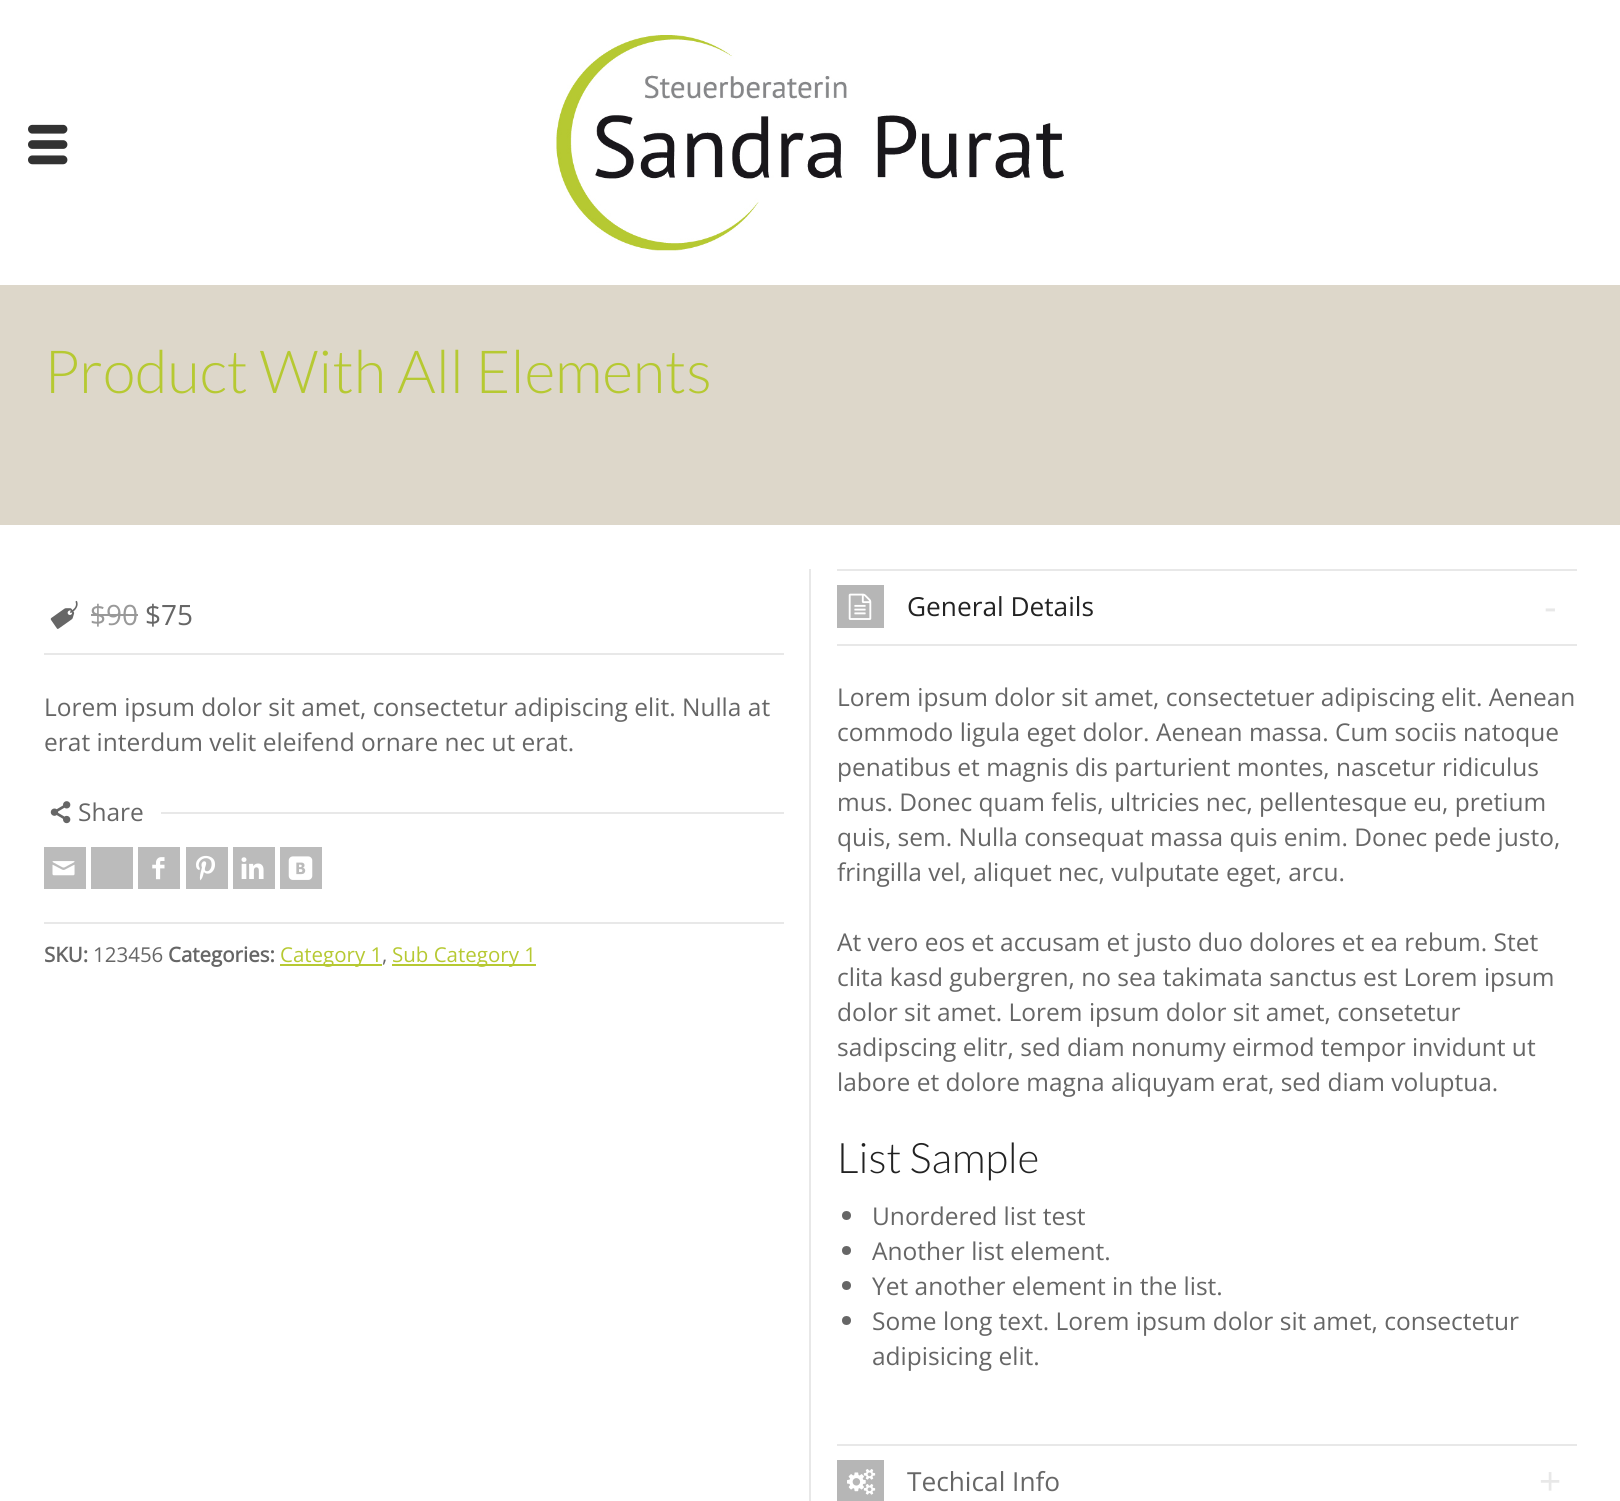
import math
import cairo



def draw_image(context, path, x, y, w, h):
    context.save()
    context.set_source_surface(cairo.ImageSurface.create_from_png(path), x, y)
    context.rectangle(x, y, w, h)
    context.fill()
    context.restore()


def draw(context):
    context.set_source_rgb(221 / 255, 215 / 255, 202 / 255)
    context.paint()
    context.set_source_rgb(1, 1, 1)
    context.rectangle(0, 0, 1620, 285)
    context.fill()
    draw_image(context, "images/1.png", 28, 124, 40, 41)
    draw_image(context, "images/2.png", 556, 35, 508, 216)
    context.rectangle(0, 525, 1620, 976)
    context.fill()
    context.set_source_rgb(232 / 255, 232 / 255, 232 / 255)
    context.rectangle(44, 653, 740, 2)
    context.fill()
    draw_image(context, "images/3.png", 50, 600, 28, 29)
    context.set_source_rgb(153 / 255, 153 / 255, 153 / 255)
    context.rectangle(91, 614, 47, 2)
    context.fill()
    draw_image(context, "images/4.png", 50, 801, 21, 23)
    context.set_source_rgb(232 / 255, 232 / 255, 232 / 255)
    context.rectangle(161, 812, 623, 2)
    context.fill()
    context.set_source_rgb(187 / 255, 187 / 255, 187 / 255)
    context.rectangle(44, 847, 42, 42)
    context.fill()
    draw_image(context, "images/5.png", 52, 861, 23, 15)
    context.rectangle(91, 847, 42, 42)
    context.fill()
    context.rectangle(138, 847, 42, 42)
    context.fill()
    draw_image(context, "images/6.png", 152, 857, 13, 23)
    context.rectangle(186, 847, 42, 42)
    context.fill()
    draw_image(context, "images/7.png", 196, 855, 19, 26)
    context.rectangle(233, 847, 42, 42)
    context.fill()
    draw_image(context, "images/8.png", 241, 857, 23, 22)
    context.rectangle(280, 847, 42, 42)
    context.fill()
    draw_image(context, "images/9.png", 288, 856, 25, 24)
    context.set_source_rgb(232 / 255, 232 / 255, 232 / 255)
    context.rectangle(44, 922, 740, 2)
    context.fill()
    context.set_source_rgb(182 / 255, 201 / 255, 50 / 255)
    context.rectangle(280, 964, 102, 2)
    context.fill()
    context.rectangle(392, 964, 144, 2)
    context.fill()
    context.set_source_rgb(232 / 255, 232 / 255, 232 / 255)
    context.rectangle(809, 569, 2, 932)
    context.fill()
    context.rectangle(837, 569, 740, 2)
    context.fill()
    context.rectangle(837, 1444, 740, 2)
    context.fill()
    context.set_source_rgb(182 / 255, 182 / 255, 182 / 255)
    context.rectangle(837, 585, 47, 43)
    context.fill()
    draw_image(context, "images/10.png", 848, 593, 24, 27)
    context.set_source_rgb(232 / 255, 232 / 255, 232 / 255)
    context.rectangle(837, 644, 740, 2)
    context.fill()
    context.set_source_rgb(102 / 255, 102 / 255, 102 / 255)
    context.arc(846.5, 1215.5, 4.5, 0, 2 * math.pi)
    context.fill()
    context.arc(846.5, 1250.5, 4.5, 0, 2 * math.pi)
    context.fill()
    context.arc(846.5, 1285.5, 4.5, 0, 2 * math.pi)
    context.fill()
    context.arc(846.5, 1320.5, 4.5, 0, 2 * math.pi)
    context.fill()
    context.set_source_rgb(182 / 255, 182 / 255, 182 / 255)
    context.rectangle(837, 1460, 47, 41)
    context.fill()
    draw_image(context, "images/11.png", 847, 1469, 29, 26)
    context.select_font_face("Lato Light")
    context.set_font_size(59.5)
    context.set_source_rgb(182 / 255, 201 / 255, 50 / 255)
    context.move_to(44, 393)
    context.show_text("Product With All Elements")
    context.select_font_face("Open Sans")
    context.set_font_size(28)
    context.set_source_rgb(153 / 255, 153 / 255, 153 / 255)
    context.move_to(90, 625)
    context.show_text("$90")
    context.set_source_rgb(102 / 255, 102 / 255, 102 / 255)
    context.move_to(145, 625)
    context.show_text("$75")
    context.set_font_size(24.5)
    context.move_to(44, 716)
    context.show_text("Lorem ipsum dolor sit amet, consectetur adipiscing elit. Nulla at")
    context.move_to(44, 751)
    context.show_text("erat interdum velit eleifend ornare nec ut erat.")
    context.move_to(78, 821)
    context.show_text("Share")
    context.select_font_face("Open Sans", cairo.FontSlant.NORMAL, cairo.FontWeight.BOLD)
    context.set_font_size(20.5)
    context.move_to(44, 962)
    context.show_text("SKU:")
    context.select_font_face("Open Sans")
    context.move_to(93, 962)
    context.show_text("123456")
    context.select_font_face("Open Sans", cairo.FontSlant.NORMAL, cairo.FontWeight.BOLD)
    context.move_to(168, 962)
    context.show_text("Categories:")
    context.select_font_face("Open Sans")
    context.set_source_rgb(182 / 255, 201 / 255, 50 / 255)
    context.move_to(280, 962)
    context.show_text("Category 1")
    context.set_source_rgb(102 / 255, 102 / 255, 102 / 255)
    context.move_to(382, 962)
    context.show_text(",")
    context.set_source_rgb(182 / 255, 201 / 255, 50 / 255)
    context.move_to(392, 962)
    context.show_text("Sub Category 1")
    context.set_font_size(26.25)
    context.set_source_rgb(34 / 255, 34 / 255, 34 / 255)
    context.move_to(907, 616)
    context.show_text("General Details")
    context.select_font_face("Liberation Sans")
    context.set_font_size(38)
    context.set_source_rgb(232 / 255, 232 / 255, 232 / 255)
    context.move_to(1544, 620)
    context.show_text("-")
    context.select_font_face("Open Sans")
    context.set_font_size(24.5)
    context.set_source_rgb(102 / 255, 102 / 255, 102 / 255)
    context.move_to(837, 706)
    context.show_text("Lorem ipsum dolor sit amet, consectetuer adipiscing elit. Aenean")
    context.move_to(837, 741)
    context.show_text("commodo ligula eget dolor. Aenean massa. Cum sociis natoque")
    context.move_to(837, 776)
    context.show_text("penatibus et magnis dis parturient montes, nascetur ridiculus")
    context.move_to(837, 811)
    context.show_text("mus. Donec quam felis, ultricies nec, pellentesque eu, pretium")
    context.move_to(837, 846)
    context.show_text("quis, sem. Nulla consequat massa quis enim. Donec pede justo,")
    context.move_to(837, 881)
    context.show_text("fringilla vel, aliquet nec, vulputate eget, arcu.")
    context.move_to(837, 951)
    context.show_text("At vero eos et accusam et justo duo dolores et ea rebum. Stet")
    context.move_to(837, 986)
    context.show_text("clita kasd gubergren, no sea takimata sanctus est Lorem ipsum")
    context.move_to(837, 1021)
    context.show_text("dolor sit amet. Lorem ipsum dolor sit amet, consetetur")
    context.move_to(837, 1056)
    context.show_text("sadipscing elitr, sed diam nonumy eirmod tempor invidunt ut")
    context.move_to(837, 1091)
    context.show_text("labore et dolore magna aliquyam erat, sed diam voluptua.")
    context.select_font_face("Lato Light")
    context.set_font_size(42)
    context.set_source_rgb(34 / 255, 34 / 255, 34 / 255)
    context.move_to(837, 1173)
    context.show_text("List Sample")
    context.select_font_face("Open Sans")
    context.set_font_size(24.5)
    context.set_source_rgb(102 / 255, 102 / 255, 102 / 255)
    context.move_to(872, 1225)
    context.show_text("Unordered list test")
    context.move_to(872, 1260)
    context.show_text("Another list element.")
    context.move_to(872, 1295)
    context.show_text("Yet another element in the list.")
    context.move_to(872, 1330)
    context.show_text("Some long text. Lorem ipsum dolor sit amet, consectetur")
    context.move_to(872, 1365)
    context.show_text("adipisicing elit.")
    context.set_font_size(26.25)
    context.move_to(907, 1491)
    context.show_text("Techical Info")
    context.select_font_face("Liberation Sans")
    context.set_font_size(38)
    context.set_source_rgb(232 / 255, 232 / 255, 232 / 255)
    context.move_to(1539, 1494)
    context.show_text("+")


surface = cairo.ImageSurface(cairo.Format.RGB24, 1620, 1501)
context = cairo.Context(surface)
options = cairo.FontOptions()
options.set_hint_metrics(cairo.HintMetrics.OFF)
options.set_hint_style(cairo.HintStyle.NONE)
context.set_font_options(options)
context.set_miter_limit(4)
draw(context)
surface.write_to_png("out.png")
